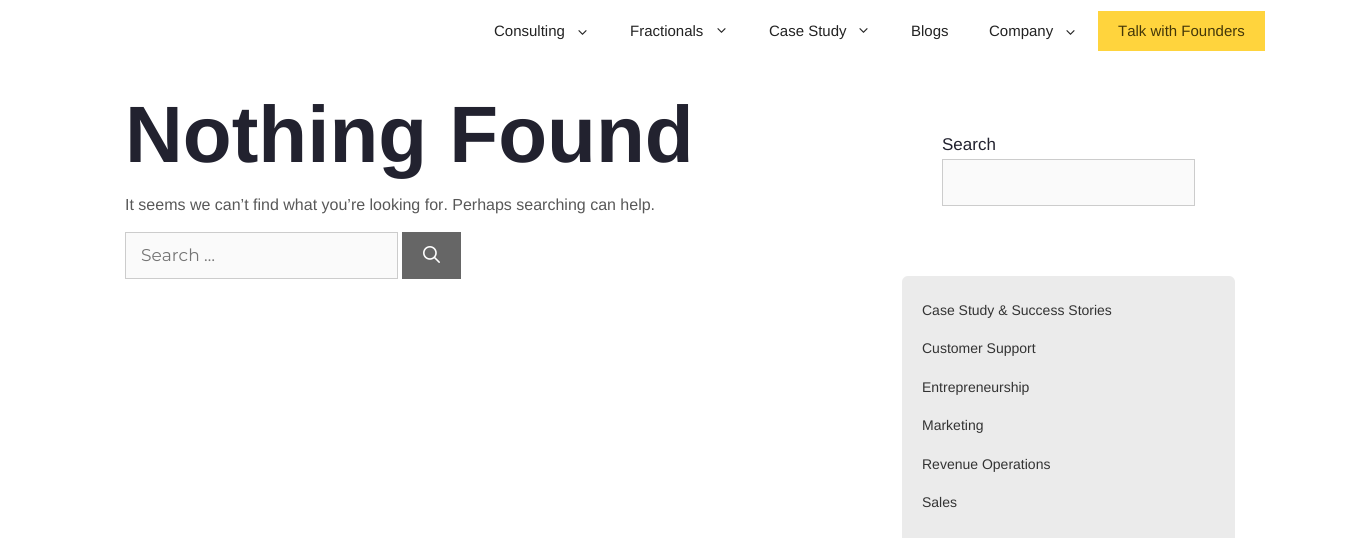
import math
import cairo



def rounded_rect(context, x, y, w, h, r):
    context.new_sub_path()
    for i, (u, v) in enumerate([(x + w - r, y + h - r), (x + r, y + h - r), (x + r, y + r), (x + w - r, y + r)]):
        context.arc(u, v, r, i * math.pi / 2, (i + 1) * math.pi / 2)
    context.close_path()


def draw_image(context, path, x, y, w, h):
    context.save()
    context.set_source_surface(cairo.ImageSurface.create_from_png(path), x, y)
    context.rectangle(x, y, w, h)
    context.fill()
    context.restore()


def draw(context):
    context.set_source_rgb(1, 1, 1)
    context.paint()
    draw_image(context, "images/1.png", 578, 30, 9, 5)
    draw_image(context, "images/1.png", 717, 28, 9, 5)
    draw_image(context, "images/1.png", 859, 28, 9, 5)
    draw_image(context, "images/1.png", 1066, 30, 9, 5)
    context.set_source_rgb(1, 212 / 255, 61 / 255)
    context.rectangle(1098, 11, 167, 40)
    context.fill()
    context.set_source_rgb(250 / 255, 250 / 255, 250 / 255)
    context.rectangle(125.5, 232.5, 272, 46)
    context.fill_preserve()
    context.set_source_rgb(204 / 255, 204 / 255, 204 / 255)
    context.set_line_width(1)
    context.stroke()
    context.set_source_rgb(102 / 255, 102 / 255, 102 / 255)
    context.rectangle(402, 232, 59, 47)
    context.fill()
    draw_image(context, "images/2.png", 423, 246, 17, 17)
    context.set_source_rgb(250 / 255, 250 / 255, 250 / 255)
    context.rectangle(942.5, 159.5, 252, 46)
    context.fill_preserve()
    context.set_source_rgb(204 / 255, 204 / 255, 204 / 255)
    context.stroke()
    context.set_source_rgb(235 / 255, 235 / 255, 235 / 255)
    rounded_rect(context, 902, 276, 333, 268, 6)
    context.fill()
    context.select_font_face("Liberation Sans")
    context.set_font_size(15)
    context.set_source_rgb(34 / 255, 34 / 255, 34 / 255)
    context.move_to(494, 36)
    context.show_text("Consulting")
    context.move_to(630, 36)
    context.show_text("Fractionals")
    context.move_to(769, 36)
    context.show_text("Case Study")
    context.move_to(911, 36)
    context.show_text("Blogs")
    context.move_to(989, 36)
    context.show_text("Company")
    context.set_source_rgb(68 / 255, 55 / 255, 8 / 255)
    context.move_to(1118, 36)
    context.show_text("Talk with Founders")
    context.select_font_face("Liberation Sans", cairo.FontSlant.NORMAL, cairo.FontWeight.BOLD)
    context.set_font_size(80)
    context.set_source_rgb(34 / 255, 34 / 255, 47 / 255)
    context.move_to(125, 162)
    context.show_text("Nothing Found")
    context.select_font_face("Liberation Sans")
    context.set_font_size(16)
    context.set_source_rgb(88 / 255, 88 / 255, 88 / 255)
    context.move_to(125, 210)
    context.show_text("It seems we can’t find what you’re looking for. Perhaps searching can help.")
    context.select_font_face("Montserrat")
    context.set_font_size(17)
    context.set_source_rgb(117 / 255, 117 / 255, 117 / 255)
    context.move_to(141, 261)
    context.show_text("Search …")
    context.select_font_face("Liberation Sans")
    context.set_source_rgb(34 / 255, 34 / 255, 47 / 255)
    context.move_to(942, 150)
    context.show_text("Search")
    context.set_font_size(14)
    context.set_source_rgb(51 / 255, 51 / 255, 51 / 255)
    context.move_to(922, 315)
    context.show_text("Case Study & Success Stories")
    context.move_to(922, 353)
    context.show_text("Customer Support")
    context.move_to(922, 392)
    context.show_text("Entrepreneurship")
    context.move_to(922, 430)
    context.show_text("Marketing")
    context.move_to(922, 469)
    context.show_text("Revenue Operations")
    context.move_to(922, 507)
    context.show_text("Sales")


surface = cairo.ImageSurface(cairo.Format.RGB24, 1359, 538)
context = cairo.Context(surface)
options = cairo.FontOptions()
options.set_hint_metrics(cairo.HintMetrics.OFF)
options.set_hint_style(cairo.HintStyle.NONE)
context.set_font_options(options)
context.set_miter_limit(4)
draw(context)
surface.write_to_png("out.png")
